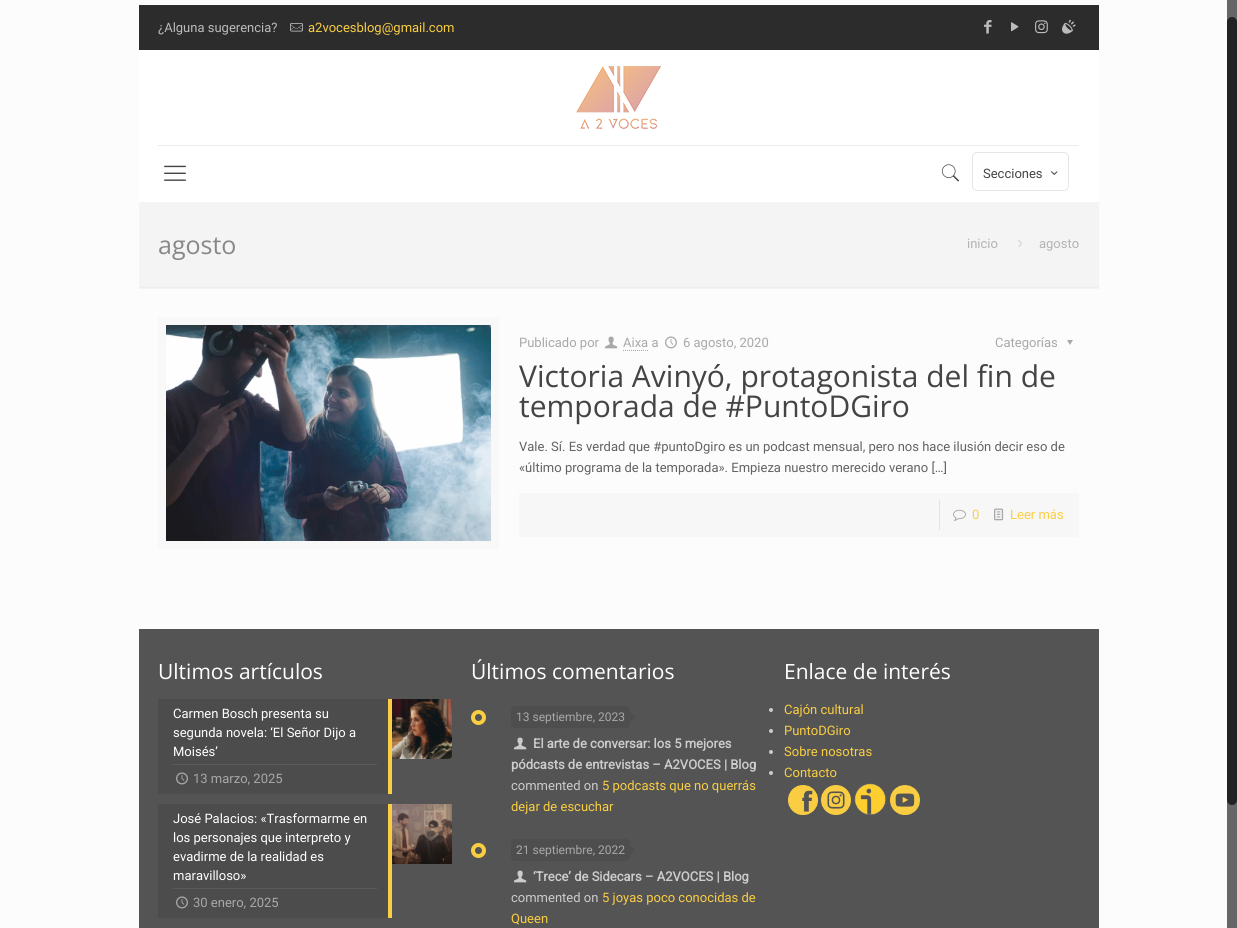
import math
import cairo



def rounded_rect(context, x, y, w, h, r):
    context.new_sub_path()
    for i, (u, v) in enumerate([(x + w - r, y + h - r), (x + r, y + h - r), (x + r, y + r), (x + w - r, y + r)]):
        context.arc(u, v, r, i * math.pi / 2, (i + 1) * math.pi / 2)
    context.close_path()


def draw_image(context, path, x, y, w, h):
    context.save()
    context.set_source_surface(cairo.ImageSurface.create_from_png(path), x, y)
    context.rectangle(x, y, w, h)
    context.fill()
    context.restore()


def draw(context):
    context.set_source_rgb(252 / 255, 252 / 255, 252 / 255)
    context.paint()
    context.set_source_rgb(244 / 255, 244 / 255, 244 / 255)
    context.rectangle(139, 202, 960, 85)
    context.fill()
    context.set_source_rgb(44 / 255, 44 / 255, 44 / 255)
    context.rectangle(139, 5, 960, 45)
    context.fill()
    draw_image(context, "images/1.png", 290, 23, 13, 9)
    draw_image(context, "images/2.png", 984, 20, 8, 14)
    draw_image(context, "images/3.png", 1011, 22, 8, 10)
    draw_image(context, "images/4.png", 1035, 20, 13, 14)
    draw_image(context, "images/5.png", 1062, 19, 14, 15)
    context.set_source_rgb(1, 1, 1)
    context.rectangle(139, 50, 960, 152)
    context.fill()
    context.set_source_rgb(235 / 255, 235 / 255, 235 / 255)
    context.rectangle(158, 145, 921, 1)
    context.fill()
    draw_image(context, "images/6.png", 576, 66, 85, 63)
    draw_image(context, "images/7.png", 164, 165, 22, 16)
    draw_image(context, "images/8.png", 941, 164, 19, 18)
    rounded_rect(context, 972.5, 152.5, 96, 38, 4.5)
    context.set_source_rgb(230 / 255, 230 / 255, 230 / 255)
    context.set_line_width(1)
    context.stroke()
    draw_image(context, "images/9.png", 1051, 171, 7, 4)
    draw_image(context, "images/10.png", 1018, 239, 5, 8)
    draw_image(context, "images/11.png", 139, 287, 960, 2)
    context.rectangle(162, 321, 333, 224)
    context.set_source_rgb(248 / 255, 248 / 255, 248 / 255)
    context.set_line_width(8)
    context.stroke()
    draw_image(context, "images/12.png", 166, 325, 325, 216)
    draw_image(context, "images/13.png", 605, 336, 13, 13)
    context.new_path()
    context.move_to(623, 350.5)
    context.line_to(649, 350.5)
    context.set_source_rgb(168 / 255, 168 / 255, 168 / 255)
    context.set_line_width(1)
    context.set_dash([1, 1])
    context.stroke()
    draw_image(context, "images/14.png", 665, 336, 12, 13)
    context.new_path()
    context.move_to(1073, 340)
    context.line_to(1070, 345)
    context.line_to(1067, 340)
    context.close_path()
    context.fill()
    context.set_source_rgb(247 / 255, 247 / 255, 247 / 255)
    context.rectangle(519, 493, 560, 44)
    context.fill()
    context.set_source_rgb(227 / 255, 227 / 255, 227 / 255)
    context.rectangle(939, 500, 1, 30)
    context.fill()
    draw_image(context, "images/15.png", 953, 509, 13, 12)
    draw_image(context, "images/16.png", 994, 508, 10, 13)
    context.set_source_rgb(84 / 255, 84 / 255, 84 / 255)
    context.rectangle(139, 629, 960, 299)
    context.fill()
    context.set_source_rgb(76 / 255, 76 / 255, 76 / 255)
    context.rectangle(158, 699, 230, 95)
    context.fill()
    context.set_source_rgb(90 / 255, 90 / 255, 90 / 255)
    context.rectangle(173, 764, 204, 1)
    context.fill()
    context.set_source_rgb(250 / 255, 206 / 255, 67 / 255)
    context.rectangle(388, 699, 4, 95)
    context.fill()
    draw_image(context, "images/17.png", 176, 772, 12, 13)
    draw_image(context, "images/18.png", 392, 699, 60, 60)
    context.set_source_rgb(76 / 255, 76 / 255, 76 / 255)
    context.rectangle(158, 804, 230, 114)
    context.fill()
    context.set_source_rgb(90 / 255, 90 / 255, 90 / 255)
    context.rectangle(173, 888, 204, 1)
    context.fill()
    context.set_source_rgb(250 / 255, 206 / 255, 67 / 255)
    context.rectangle(388, 804, 4, 114)
    context.fill()
    draw_image(context, "images/17.png", 176, 896, 12, 13)
    draw_image(context, "images/19.png", 392, 804, 60, 60)
    context.arc(478.5, 717.5, 5.5, 0, 2 * math.pi)
    context.set_line_width(4)
    context.set_dash([])
    context.stroke()
    context.set_source_rgb(78 / 255, 78 / 255, 78 / 255)
    rounded_rect(context, 511, 706, 119, 22, 4)
    context.fill()
    context.new_path()
    context.move_to(630, 722)
    context.line_to(630, 712)
    context.line_to(635, 717)
    context.close_path()
    context.fill()
    draw_image(context, "images/20.png", 514, 737, 13, 13)
    context.arc(478.5, 850.5, 5.5, 0, 2 * math.pi)
    context.set_source_rgb(250 / 255, 206 / 255, 67 / 255)
    context.stroke()
    context.set_source_rgb(78 / 255, 78 / 255, 78 / 255)
    rounded_rect(context, 511, 839, 119, 22, 4)
    context.fill()
    context.new_path()
    context.move_to(630, 855)
    context.line_to(630, 845)
    context.line_to(635, 850)
    context.close_path()
    context.fill()
    draw_image(context, "images/20.png", 514, 870, 13, 13)
    context.set_source_rgb(204 / 255, 204 / 255, 204 / 255)
    context.arc(771, 710, 2, 0, 2 * math.pi)
    context.fill()
    context.arc(771, 731, 2, 0, 2 * math.pi)
    context.fill()
    context.arc(771, 752, 2, 0, 2 * math.pi)
    context.fill()
    context.arc(771, 773, 2, 0, 2 * math.pi)
    context.fill()
    draw_image(context, "images/21.png", 788, 785, 30, 30)
    draw_image(context, "images/22.png", 821, 785, 30, 30)
    draw_image(context, "images/23.png", 854, 783, 32, 32)
    draw_image(context, "images/24.png", 890, 785, 30, 30)
    context.set_source_rgb(102 / 255, 102 / 255, 102 / 255)
    context.rectangle(1227, 0, 10, 928)
    context.fill()
    context.set_source_rgb(34 / 255, 34 / 255, 34 / 255)
    rounded_rect(context, 1227, 17, 10, 788, 5)
    context.fill()
    context.select_font_face("Roboto")
    context.set_font_size(13)
    context.set_source_rgb(187 / 255, 187 / 255, 187 / 255)
    context.move_to(158, 32)
    context.show_text("¿Alguna sugerencia?")
    context.set_source_rgb(250 / 255, 206 / 255, 67 / 255)
    context.move_to(308, 32)
    context.show_text("a2vocesblog@gmail.com")
    context.set_source_rgb(68 / 255, 68 / 255, 68 / 255)
    context.move_to(983, 178)
    context.show_text("Secciones")
    context.select_font_face("Open Sans")
    context.set_font_size(25)
    context.set_source_rgb(136 / 255, 136 / 255, 136 / 255)
    context.move_to(158, 254)
    context.show_text("agosto")
    context.select_font_face("Roboto")
    context.set_font_size(13)
    context.set_source_rgb(179 / 255, 179 / 255, 179 / 255)
    context.move_to(967, 248)
    context.show_text("inicio")
    context.move_to(1039, 248)
    context.show_text("agosto")
    context.set_source_rgb(168 / 255, 168 / 255, 168 / 255)
    context.move_to(519, 347)
    context.show_text("Publicado por")
    context.move_to(623, 347)
    context.show_text("Aixa a")
    context.move_to(683, 347)
    context.show_text("6 agosto, 2020")
    context.move_to(995, 347)
    context.show_text("Categorías")
    context.select_font_face("Open Sans")
    context.set_font_size(30)
    context.set_source_rgb(68 / 255, 68 / 255, 68 / 255)
    context.move_to(519, 387)
    context.show_text("Victoria Avinyó, protagonista del fin de")
    context.move_to(519, 417)
    context.show_text("temporada de #PuntoDGiro")
    context.select_font_face("Roboto")
    context.set_font_size(13)
    context.set_source_rgb(98 / 255, 98 / 255, 98 / 255)
    context.move_to(519, 451)
    context.show_text("Vale. Sí. Es verdad que #puntoDgiro es un podcast mensual, pero nos hace ilusión decir eso de")
    context.move_to(519, 472)
    context.show_text("«último programa de la temporada». Empieza nuestro merecido verano […]")
    context.set_source_rgb(250 / 255, 206 / 255, 67 / 255)
    context.move_to(972, 519)
    context.show_text("0")
    context.move_to(1010, 519)
    context.show_text("Leer más")
    context.select_font_face("Open Sans")
    context.set_font_size(21)
    context.set_source_rgb(1, 1, 1)
    context.move_to(158, 679)
    context.show_text("Ultimos artículos")
    context.select_font_face("Roboto")
    context.set_font_size(13)
    context.move_to(173, 718)
    context.show_text("Carmen Bosch presenta su")
    context.move_to(173, 737)
    context.show_text("segunda novela: ‘El Señor Dijo a")
    context.move_to(173, 756)
    context.show_text("Moisés’")
    context.set_source_rgb(168 / 255, 168 / 255, 168 / 255)
    context.move_to(193, 783)
    context.show_text("13 marzo, 2025")
    context.set_source_rgb(1, 1, 1)
    context.move_to(173, 823)
    context.show_text("José Palacios: «Trasformarme en")
    context.move_to(173, 842)
    context.show_text("los personajes que interpreto y")
    context.move_to(173, 861)
    context.show_text("evadirme de la realidad es")
    context.move_to(173, 880)
    context.show_text("maravilloso»")
    context.set_source_rgb(168 / 255, 168 / 255, 168 / 255)
    context.move_to(193, 907)
    context.show_text("30 enero, 2025")
    context.select_font_face("Open Sans")
    context.set_font_size(21)
    context.set_source_rgb(1, 1, 1)
    context.move_to(471, 679)
    context.show_text("Últimos comentarios")
    context.select_font_face("Roboto")
    context.set_font_size(12)
    context.set_source_rgb(168 / 255, 168 / 255, 168 / 255)
    context.move_to(516, 721)
    context.show_text("13 septiembre, 2023")
    context.select_font_face("Roboto", cairo.FontSlant.NORMAL, cairo.FontWeight.BOLD)
    context.set_font_size(13)
    context.set_source_rgb(204 / 255, 204 / 255, 204 / 255)
    context.move_to(533, 748)
    context.show_text("El arte de conversar: los 5 mejores")
    context.move_to(511, 769)
    context.show_text("pódcasts de entrevistas – A2VOCES | Blog")
    context.select_font_face("Roboto")
    context.move_to(511, 790)
    context.show_text("commented on")
    context.set_source_rgb(250 / 255, 206 / 255, 67 / 255)
    context.move_to(602, 790)
    context.show_text("5 podcasts que no querrás")
    context.move_to(511, 811)
    context.show_text("dejar de escuchar")
    context.set_font_size(12)
    context.set_source_rgb(168 / 255, 168 / 255, 168 / 255)
    context.move_to(516, 854)
    context.show_text("21 septiembre, 2022")
    context.select_font_face("Roboto", cairo.FontSlant.NORMAL, cairo.FontWeight.BOLD)
    context.set_font_size(13)
    context.set_source_rgb(204 / 255, 204 / 255, 204 / 255)
    context.move_to(533, 881)
    context.show_text("‘Trece’ de Sidecars – A2VOCES | Blog")
    context.select_font_face("Roboto")
    context.move_to(511, 902)
    context.show_text("commented on")
    context.set_source_rgb(250 / 255, 206 / 255, 67 / 255)
    context.move_to(602, 902)
    context.show_text("5 joyas poco conocidas de")
    context.move_to(511, 923)
    context.show_text("Queen")
    context.select_font_face("Open Sans")
    context.set_font_size(21)
    context.set_source_rgb(1, 1, 1)
    context.move_to(784, 679)
    context.show_text("Enlace de interés")
    context.select_font_face("Roboto")
    context.set_font_size(13)
    context.set_source_rgb(250 / 255, 206 / 255, 67 / 255)
    context.move_to(784, 714)
    context.show_text("Cajón cultural")
    context.move_to(784, 735)
    context.show_text("PuntoDGiro")
    context.move_to(784, 756)
    context.show_text("Sobre nosotras")
    context.move_to(784, 777)
    context.show_text("Contacto")


surface = cairo.ImageSurface(cairo.Format.RGB24, 1237, 928)
context = cairo.Context(surface)
options = cairo.FontOptions()
options.set_hint_metrics(cairo.HintMetrics.OFF)
options.set_hint_style(cairo.HintStyle.NONE)
context.set_font_options(options)
context.set_miter_limit(4)
draw(context)
surface.write_to_png("out.png")
